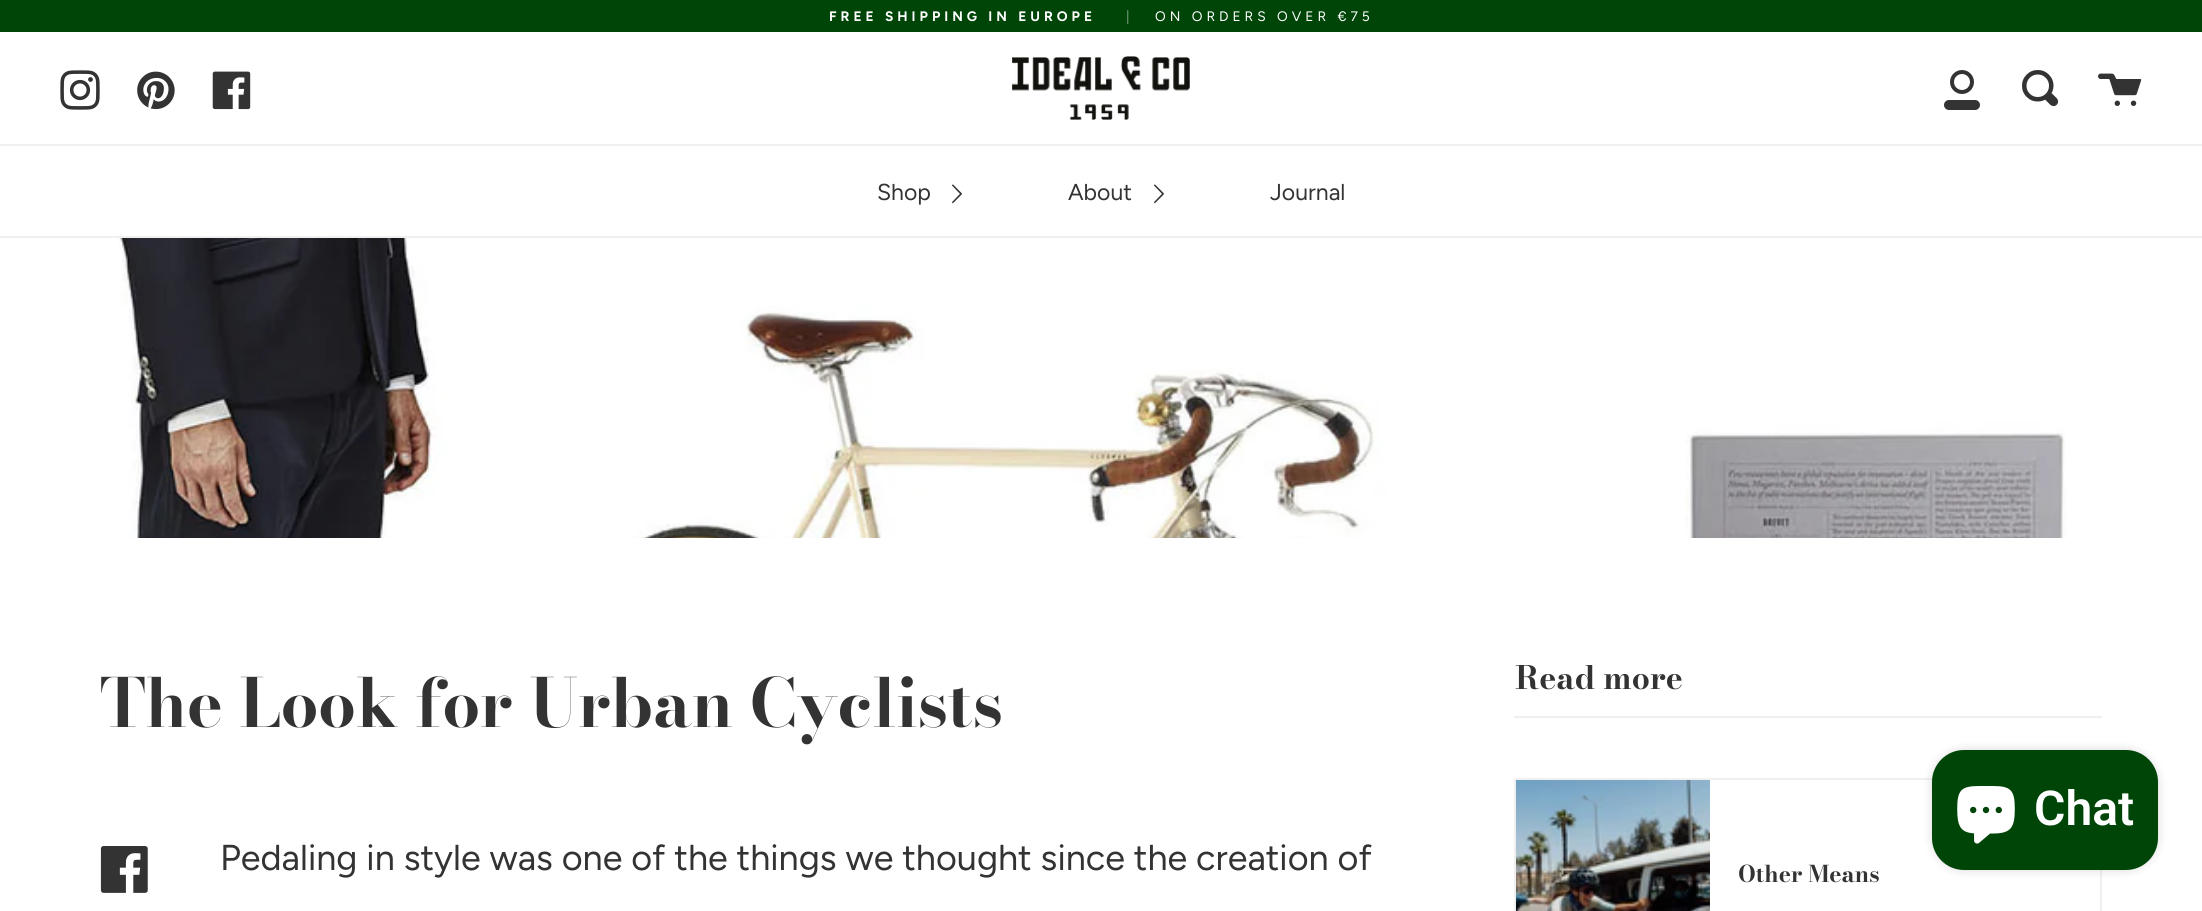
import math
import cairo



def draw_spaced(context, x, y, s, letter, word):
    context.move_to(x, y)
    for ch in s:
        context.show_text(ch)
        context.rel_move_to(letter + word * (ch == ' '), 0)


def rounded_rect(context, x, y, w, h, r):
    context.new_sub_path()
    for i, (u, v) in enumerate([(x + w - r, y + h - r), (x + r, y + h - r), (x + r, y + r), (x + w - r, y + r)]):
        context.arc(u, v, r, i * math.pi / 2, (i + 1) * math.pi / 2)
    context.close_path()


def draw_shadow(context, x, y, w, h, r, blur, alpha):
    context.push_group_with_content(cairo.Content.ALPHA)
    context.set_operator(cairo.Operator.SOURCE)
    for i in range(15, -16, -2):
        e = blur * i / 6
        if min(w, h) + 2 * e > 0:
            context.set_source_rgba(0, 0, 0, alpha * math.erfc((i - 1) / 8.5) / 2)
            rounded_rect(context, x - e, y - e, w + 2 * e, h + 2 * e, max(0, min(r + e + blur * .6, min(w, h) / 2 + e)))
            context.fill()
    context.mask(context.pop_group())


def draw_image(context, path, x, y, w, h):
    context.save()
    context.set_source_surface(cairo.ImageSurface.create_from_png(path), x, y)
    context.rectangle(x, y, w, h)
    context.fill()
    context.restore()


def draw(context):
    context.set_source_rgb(1, 1, 1)
    context.paint()
    context.set_source_rgb(0, 69 / 255, 8 / 255)
    context.rectangle(0, 0, 2202, 32)
    context.fill()
    draw_image(context, "images/1.png", 60, 70, 40, 40)
    draw_image(context, "images/2.png", 137, 71, 38, 39)
    draw_image(context, "images/3.png", 212, 71, 39, 39)
    draw_image(context, "images/4.png", 1012, 56, 178, 64)
    draw_image(context, "images/5.png", 1944, 70, 36, 40)
    draw_image(context, "images/6.png", 2022, 70, 37, 37)
    draw_image(context, "images/7.png", 2098, 73, 44, 33)
    context.set_source_rgb(240 / 255, 240 / 255, 240 / 255)
    context.rectangle(0, 144, 2202, 2)
    context.fill()
    context.rectangle(0, 236, 2202, 2)
    context.fill()
    draw_image(context, "images/8.png", 952, 184, 10, 20)
    draw_image(context, "images/8.png", 1154, 184, 10, 20)
    draw_image(context, "images/9.png", 118, 238, 1948, 300)
    draw_image(context, "images/10.png", 100, 846, 48, 47)
    context.rectangle(1514, 716, 588, 2)
    context.fill()
    context.rectangle(1515, 779, 586, 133)
    context.stroke()
    draw_image(context, "images/11.png", 1516, 780, 194, 131)
    context.set_source_rgb(0, 0, 0)
    draw_shadow(context, 1932, 750, 226, 120, 32, 5, 0.15)
    context.set_source_rgb(0, 69 / 255, 8 / 255)
    rounded_rect(context, 1932, 750, 226, 120, 32)
    context.fill()
    draw_image(context, "images/12.png", 1957, 786, 58, 58)
    context.select_font_face("Figtree", cairo.FontSlant.NORMAL, cairo.FontWeight.BOLD)
    context.set_font_size(13.75)
    context.set_source_rgb(1, 1, 1)
    draw_spaced(context, 829, 21, "FREE SHIPPING IN EUROPE", 4, 0)
    context.select_font_face("Figtree")
    context.set_source_rgb(128 / 255, 162 / 255, 132 / 255)
    draw_spaced(context, 1126, 21, "|", 4, 0)
    context.set_source_rgb(1, 1, 1)
    draw_spaced(context, 1155, 21, "ON ORDERS OVER €75", 4, 0)
    context.set_font_size(23)
    context.set_source_rgb(51 / 255, 51 / 255, 51 / 255)
    context.move_to(877, 200)
    context.show_text("Shop")
    context.move_to(1068, 200)
    context.show_text("About")
    context.move_to(1270, 200)
    context.show_text("Journal")
    context.select_font_face("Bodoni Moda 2", cairo.FontSlant.NORMAL, cairo.FontWeight.BOLD)
    context.set_font_size(66.9)
    context.move_to(100, 727)
    context.show_text("The Look for Urban Cyclists")
    context.select_font_face("Figtree")
    context.set_font_size(36)
    context.move_to(220, 870)
    context.show_text("Pedaling in style was one of the things we thought since the creation of")
    context.select_font_face("Bodoni Moda", cairo.FontSlant.NORMAL, cairo.FontWeight.BOLD)
    context.set_font_size(32)
    context.move_to(1515, 689)
    context.show_text("Read more")
    context.set_font_size(23)
    context.move_to(1738, 882)
    context.show_text("Other Means")
    context.select_font_face("Roboto SemiBold")
    context.set_font_size(48)
    context.set_source_rgb(1, 1, 1)
    context.move_to(2034, 825)
    context.show_text("Chat")


surface = cairo.ImageSurface(cairo.Format.RGB24, 2202, 911)
context = cairo.Context(surface)
options = cairo.FontOptions()
options.set_hint_metrics(cairo.HintMetrics.OFF)
options.set_hint_style(cairo.HintStyle.NONE)
context.set_font_options(options)
context.set_miter_limit(4)
draw(context)
surface.write_to_png("out.png")
